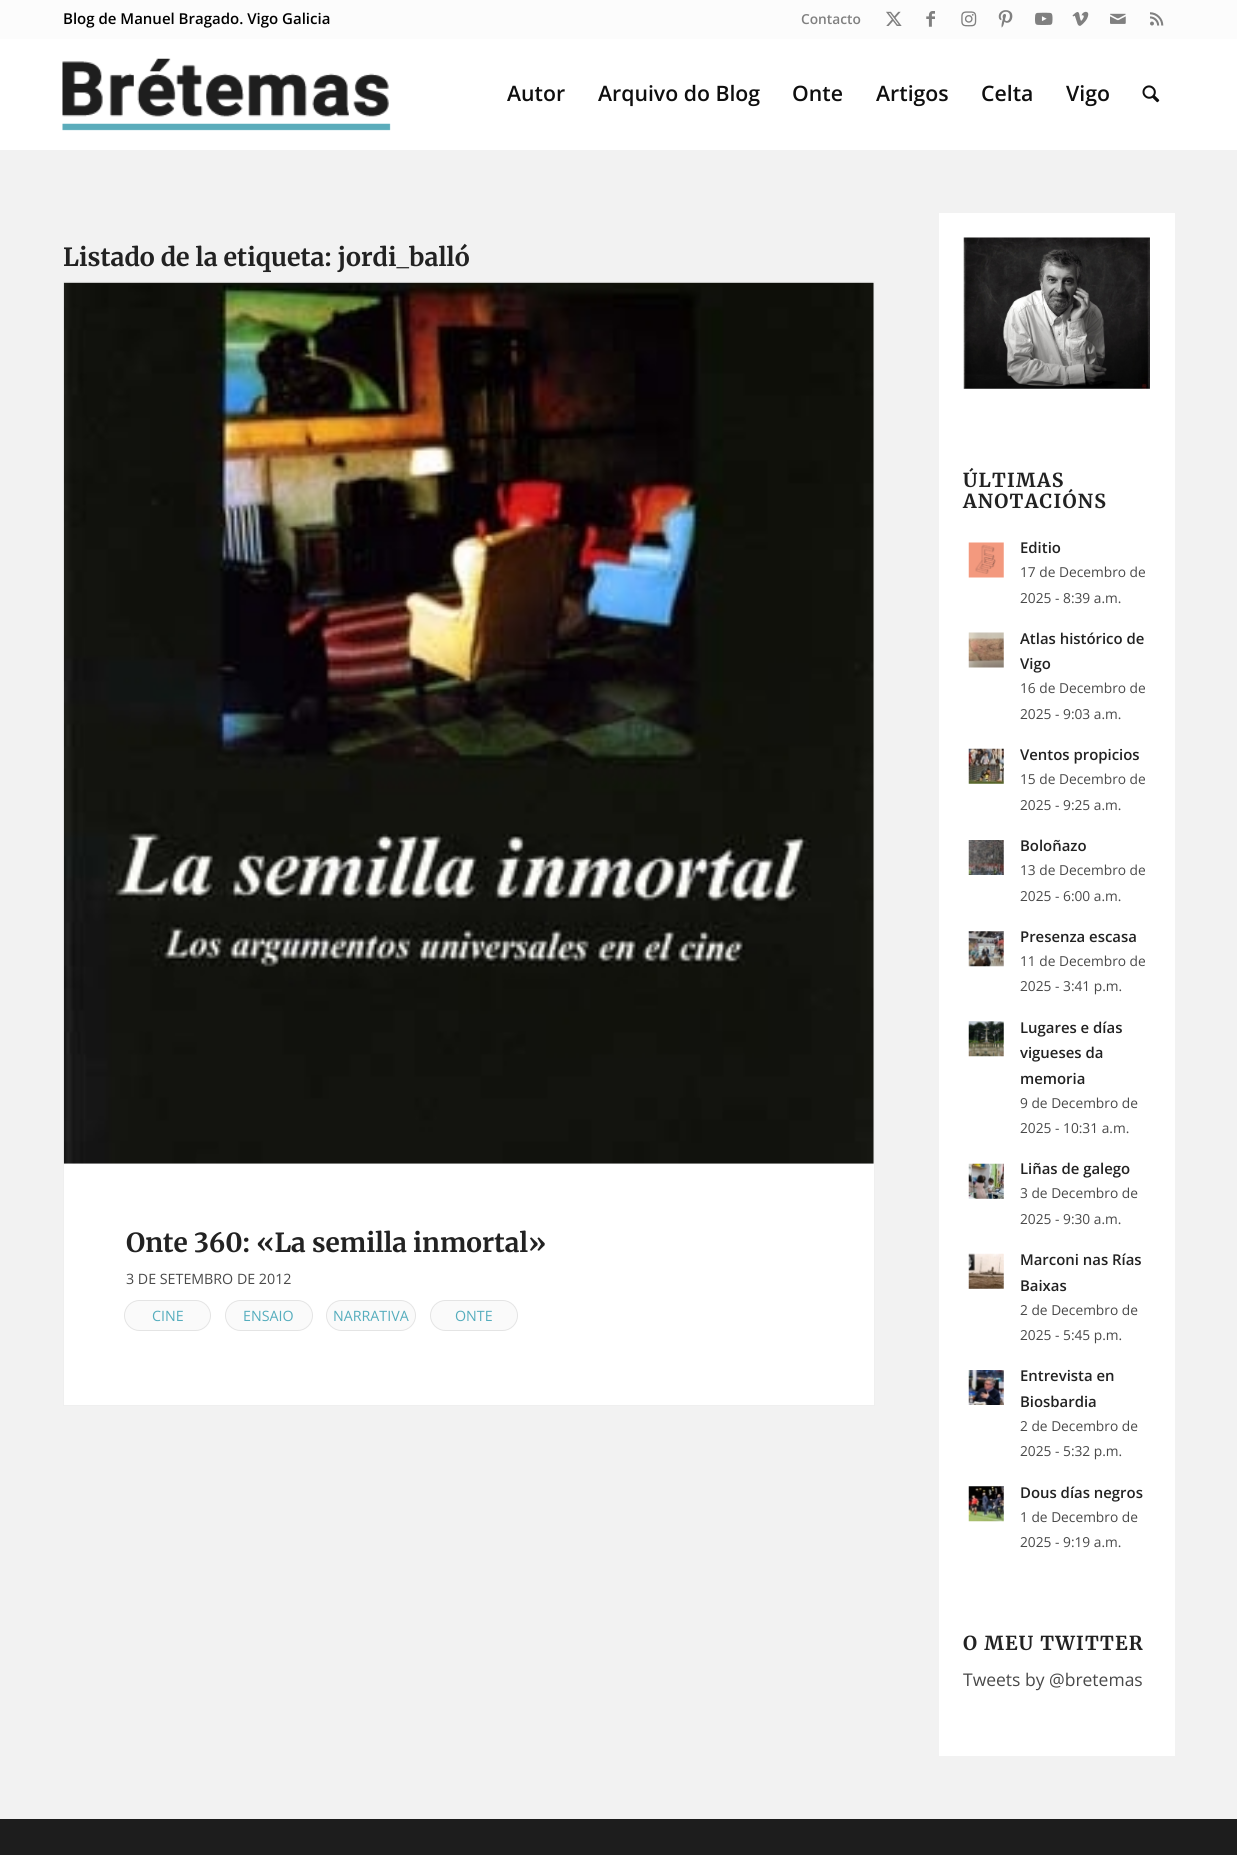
import math
import cairo



def draw_spaced(context, x, y, s, letter, word):
    context.move_to(x, y)
    for ch in s:
        context.show_text(ch)
        context.rel_move_to(letter + word * (ch == ' '), 0)


def rounded_rect(context, x, y, w, h, r):
    context.new_sub_path()
    for i, (u, v) in enumerate([(x + w - r, y + h - r), (x + r, y + h - r), (x + r, y + r), (x + w - r, y + r)]):
        context.arc(u, v, r, i * math.pi / 2, (i + 1) * math.pi / 2)
    context.close_path()


def draw_image(context, path, x, y, w, h):
    context.save()
    context.set_source_surface(cairo.ImageSurface.create_from_png(path), x, y)
    context.rectangle(x, y, w, h)
    context.fill()
    context.restore()


def draw(context):
    context.set_source_rgb(1, 1, 1)
    context.paint()
    context.set_source_rgb(252 / 255, 252 / 255, 252 / 255)
    context.rectangle(0, 0, 1237, 39)
    context.fill()
    draw_image(context, "images/1.png", 886, 11, 16, 15)
    draw_image(context, "images/2.png", 926, 11, 9, 16)
    draw_image(context, "images/3.png", 961, 11, 16, 16)
    draw_image(context, "images/4.png", 998, 10, 15, 18)
    draw_image(context, "images/5.png", 1035, 12, 18, 13)
    draw_image(context, "images/6.png", 1072, 11, 17, 15)
    draw_image(context, "images/7.png", 1110, 13, 16, 11)
    draw_image(context, "images/8.png", 1150, 12, 14, 14)
    draw_image(context, "images/9.png", 62, 58, 329, 73)
    draw_image(context, "images/10.png", 1142, 85, 18, 18)
    context.set_source_rgb(242 / 255, 242 / 255, 242 / 255)
    context.rectangle(0, 150, 1237, 1669)
    context.fill()
    context.set_source_rgb(1, 1, 1)
    context.rectangle(63.5, 281.5, 811, 1124)
    context.fill_preserve()
    context.set_source_rgb(239 / 255, 239 / 255, 239 / 255)
    context.set_line_width(1)
    context.stroke()
    draw_image(context, "images/11.png", 63, 282, 811, 882)
    context.set_source_rgb(250 / 255, 250 / 255, 250 / 255)
    rounded_rect(context, 124.5, 1300.5, 86, 30, 15)
    context.fill_preserve()
    context.set_source_rgb(228 / 255, 228 / 255, 228 / 255)
    context.stroke()
    context.set_source_rgb(250 / 255, 250 / 255, 250 / 255)
    rounded_rect(context, 225.5, 1300.5, 87, 30, 15)
    context.fill_preserve()
    context.set_source_rgb(228 / 255, 228 / 255, 228 / 255)
    context.stroke()
    context.set_source_rgb(250 / 255, 250 / 255, 250 / 255)
    rounded_rect(context, 326.5, 1300.5, 89, 30, 15)
    context.fill_preserve()
    context.set_source_rgb(228 / 255, 228 / 255, 228 / 255)
    context.stroke()
    context.set_source_rgb(250 / 255, 250 / 255, 250 / 255)
    rounded_rect(context, 430.5, 1300.5, 87, 30, 15)
    context.fill_preserve()
    context.set_source_rgb(228 / 255, 228 / 255, 228 / 255)
    context.stroke()
    context.set_source_rgb(1, 1, 1)
    context.rectangle(939, 213, 236, 1543)
    context.fill()
    draw_image(context, "images/12.png", 963, 237, 187, 152)
    draw_image(context, "images/13.png", 968, 542, 36, 36)
    draw_image(context, "images/14.png", 968, 632, 36, 36)
    draw_image(context, "images/15.png", 968, 748, 36, 36)
    draw_image(context, "images/16.png", 968, 840, 36, 35)
    draw_image(context, "images/17.png", 968, 931, 36, 36)
    draw_image(context, "images/18.png", 968, 1021, 36, 36)
    draw_image(context, "images/19.png", 968, 1163, 36, 36)
    draw_image(context, "images/20.png", 968, 1253, 36, 36)
    draw_image(context, "images/21.png", 968, 1370, 36, 35)
    draw_image(context, "images/22.png", 968, 1486, 36, 36)
    context.set_source_rgb(29 / 255, 29 / 255, 29 / 255)
    context.rectangle(0, 1819, 1237, 36)
    context.fill()
    context.select_font_face("Open Sans SemiBold")
    context.set_font_size(15)
    context.set_source_rgb(0, 0, 0)
    context.move_to(63, 24)
    context.show_text("Blog de Manuel Bragado. Vigo Galicia")
    context.set_font_size(13.75)
    context.set_source_rgb(128 / 255, 128 / 255, 128 / 255)
    context.move_to(801, 24)
    context.show_text("Contacto")
    context.set_font_size(21.25)
    context.set_source_rgb(15 / 255, 15 / 255, 15 / 255)
    context.move_to(507, 101)
    context.show_text("Autor")
    context.move_to(598, 101)
    context.show_text("Arquivo do Blog")
    context.move_to(792, 101)
    context.show_text("Onte")
    context.move_to(876, 101)
    context.show_text("Artigos")
    context.move_to(981, 101)
    context.show_text("Celta")
    context.move_to(1066, 101)
    context.show_text("Vigo")
    context.select_font_face("Merriweather", cairo.FontSlant.NORMAL, cairo.FontWeight.BOLD)
    context.set_font_size(25)
    context.set_source_rgb(34 / 255, 34 / 255, 34 / 255)
    context.move_to(63, 266)
    context.show_text("Listado de la etiqueta: jordi_balló")
    context.set_font_size(26.25)
    context.move_to(126, 1252)
    context.show_text("Onte 360: «La semilla inmortal»")
    context.select_font_face("Open Sans")
    context.set_font_size(14.25)
    context.set_source_rgb(73 / 255, 73 / 255, 73 / 255)
    context.move_to(126, 1284)
    context.show_text("3 DE SETEMBRO DE 2012")
    context.set_source_rgb(85 / 255, 173 / 255, 189 / 255)
    context.move_to(152, 1321)
    context.show_text("CINE")
    context.move_to(243, 1321)
    context.show_text("ENSAIO")
    context.move_to(333, 1321)
    context.show_text("NARRATIVA")
    context.move_to(455, 1321)
    context.show_text("ONTE")
    context.select_font_face("Merriweather", cairo.FontSlant.NORMAL, cairo.FontWeight.BOLD)
    context.set_font_size(19.25)
    context.set_source_rgb(34 / 255, 34 / 255, 34 / 255)
    draw_spaced(context, 963, 487, "ÚLTIMAS", 1.25, 0)
    draw_spaced(context, 963, 508, "ANOTACIÓNS", 1.25, 0)
    context.select_font_face("Open Sans SemiBold")
    context.set_font_size(14.9)
    context.move_to(1020, 553)
    context.show_text("Editio")
    context.select_font_face("Open Sans")
    context.set_font_size(13.75)
    context.set_source_rgb(73 / 255, 73 / 255, 73 / 255)
    context.move_to(1020, 577)
    context.show_text("17 de Decembro de")
    context.move_to(1020, 603)
    context.show_text("2025 - 8:39 a.m.")
    context.select_font_face("Open Sans SemiBold")
    context.set_font_size(14.9)
    context.set_source_rgb(34 / 255, 34 / 255, 34 / 255)
    context.move_to(1020, 644)
    context.show_text("Atlas histórico de")
    context.move_to(1020, 669)
    context.show_text("Vigo")
    context.select_font_face("Open Sans")
    context.set_font_size(13.75)
    context.set_source_rgb(73 / 255, 73 / 255, 73 / 255)
    context.move_to(1020, 693)
    context.show_text("16 de Decembro de")
    context.move_to(1020, 719)
    context.show_text("2025 - 9:03 a.m.")
    context.select_font_face("Open Sans SemiBold")
    context.set_font_size(14.9)
    context.set_source_rgb(34 / 255, 34 / 255, 34 / 255)
    context.move_to(1020, 760)
    context.show_text("Ventos propicios")
    context.select_font_face("Open Sans")
    context.set_font_size(13.75)
    context.set_source_rgb(73 / 255, 73 / 255, 73 / 255)
    context.move_to(1020, 784)
    context.show_text("15 de Decembro de")
    context.move_to(1020, 810)
    context.show_text("2025 - 9:25 a.m.")
    context.select_font_face("Open Sans SemiBold")
    context.set_font_size(14.9)
    context.set_source_rgb(34 / 255, 34 / 255, 34 / 255)
    context.move_to(1020, 851)
    context.show_text("Boloñazo")
    context.select_font_face("Open Sans")
    context.set_font_size(13.75)
    context.set_source_rgb(73 / 255, 73 / 255, 73 / 255)
    context.move_to(1020, 875)
    context.show_text("13 de Decembro de")
    context.move_to(1020, 901)
    context.show_text("2025 - 6:00 a.m.")
    context.select_font_face("Open Sans SemiBold")
    context.set_font_size(14.9)
    context.set_source_rgb(34 / 255, 34 / 255, 34 / 255)
    context.move_to(1020, 942)
    context.show_text("Presenza escasa")
    context.select_font_face("Open Sans")
    context.set_font_size(13.75)
    context.set_source_rgb(73 / 255, 73 / 255, 73 / 255)
    context.move_to(1020, 966)
    context.show_text("11 de Decembro de")
    context.move_to(1020, 991)
    context.show_text("2025 - 3:41 p.m.")
    context.select_font_face("Open Sans SemiBold")
    context.set_font_size(14.9)
    context.set_source_rgb(34 / 255, 34 / 255, 34 / 255)
    context.move_to(1020, 1033)
    context.show_text("Lugares e días")
    context.move_to(1020, 1058)
    context.show_text("vigueses da")
    context.move_to(1020, 1084)
    context.show_text("memoria")
    context.select_font_face("Open Sans")
    context.set_font_size(13.75)
    context.set_source_rgb(73 / 255, 73 / 255, 73 / 255)
    context.move_to(1020, 1108)
    context.show_text("9 de Decembro de")
    context.move_to(1020, 1133)
    context.show_text("2025 - 10:31 a.m.")
    context.select_font_face("Open Sans SemiBold")
    context.set_font_size(14.9)
    context.set_source_rgb(34 / 255, 34 / 255, 34 / 255)
    context.move_to(1020, 1174)
    context.show_text("Liñas de galego")
    context.select_font_face("Open Sans")
    context.set_font_size(13.75)
    context.set_source_rgb(73 / 255, 73 / 255, 73 / 255)
    context.move_to(1020, 1198)
    context.show_text("3 de Decembro de")
    context.move_to(1020, 1224)
    context.show_text("2025 - 9:30 a.m.")
    context.select_font_face("Open Sans SemiBold")
    context.set_font_size(14.9)
    context.set_source_rgb(34 / 255, 34 / 255, 34 / 255)
    context.move_to(1020, 1265)
    context.show_text("Marconi nas Rías")
    context.move_to(1020, 1291)
    context.show_text("Baixas")
    context.select_font_face("Open Sans")
    context.set_font_size(13.75)
    context.set_source_rgb(73 / 255, 73 / 255, 73 / 255)
    context.move_to(1020, 1315)
    context.show_text("2 de Decembro de")
    context.move_to(1020, 1340)
    context.show_text("2025 - 5:45 p.m.")
    context.select_font_face("Open Sans SemiBold")
    context.set_font_size(14.9)
    context.set_source_rgb(34 / 255, 34 / 255, 34 / 255)
    context.move_to(1020, 1381)
    context.show_text("Entrevista en")
    context.move_to(1020, 1407)
    context.show_text("Biosbardia")
    context.select_font_face("Open Sans")
    context.set_font_size(13.75)
    context.set_source_rgb(73 / 255, 73 / 255, 73 / 255)
    context.move_to(1020, 1431)
    context.show_text("2 de Decembro de")
    context.move_to(1020, 1456)
    context.show_text("2025 - 5:32 p.m.")
    context.select_font_face("Open Sans SemiBold")
    context.set_font_size(14.9)
    context.set_source_rgb(34 / 255, 34 / 255, 34 / 255)
    context.move_to(1020, 1498)
    context.show_text("Dous días negros")
    context.select_font_face("Open Sans")
    context.set_font_size(13.75)
    context.set_source_rgb(73 / 255, 73 / 255, 73 / 255)
    context.move_to(1020, 1522)
    context.show_text("1 de Decembro de")
    context.move_to(1020, 1547)
    context.show_text("2025 - 9:19 a.m.")
    context.select_font_face("Merriweather", cairo.FontSlant.NORMAL, cairo.FontWeight.BOLD)
    context.set_font_size(19.25)
    context.set_source_rgb(34 / 255, 34 / 255, 34 / 255)
    draw_spaced(context, 963, 1650, "O MEU TWITTER", 1.25, 0)
    context.select_font_face("Open Sans")
    context.set_font_size(17.5)
    context.set_source_rgb(73 / 255, 73 / 255, 73 / 255)
    context.move_to(963, 1686)
    context.show_text("Tweets by @bretemas")


surface = cairo.ImageSurface(cairo.Format.RGB24, 1237, 1855)
context = cairo.Context(surface)
options = cairo.FontOptions()
options.set_hint_metrics(cairo.HintMetrics.OFF)
options.set_hint_style(cairo.HintStyle.NONE)
context.set_font_options(options)
context.set_miter_limit(4)
draw(context)
surface.write_to_png("out.png")
